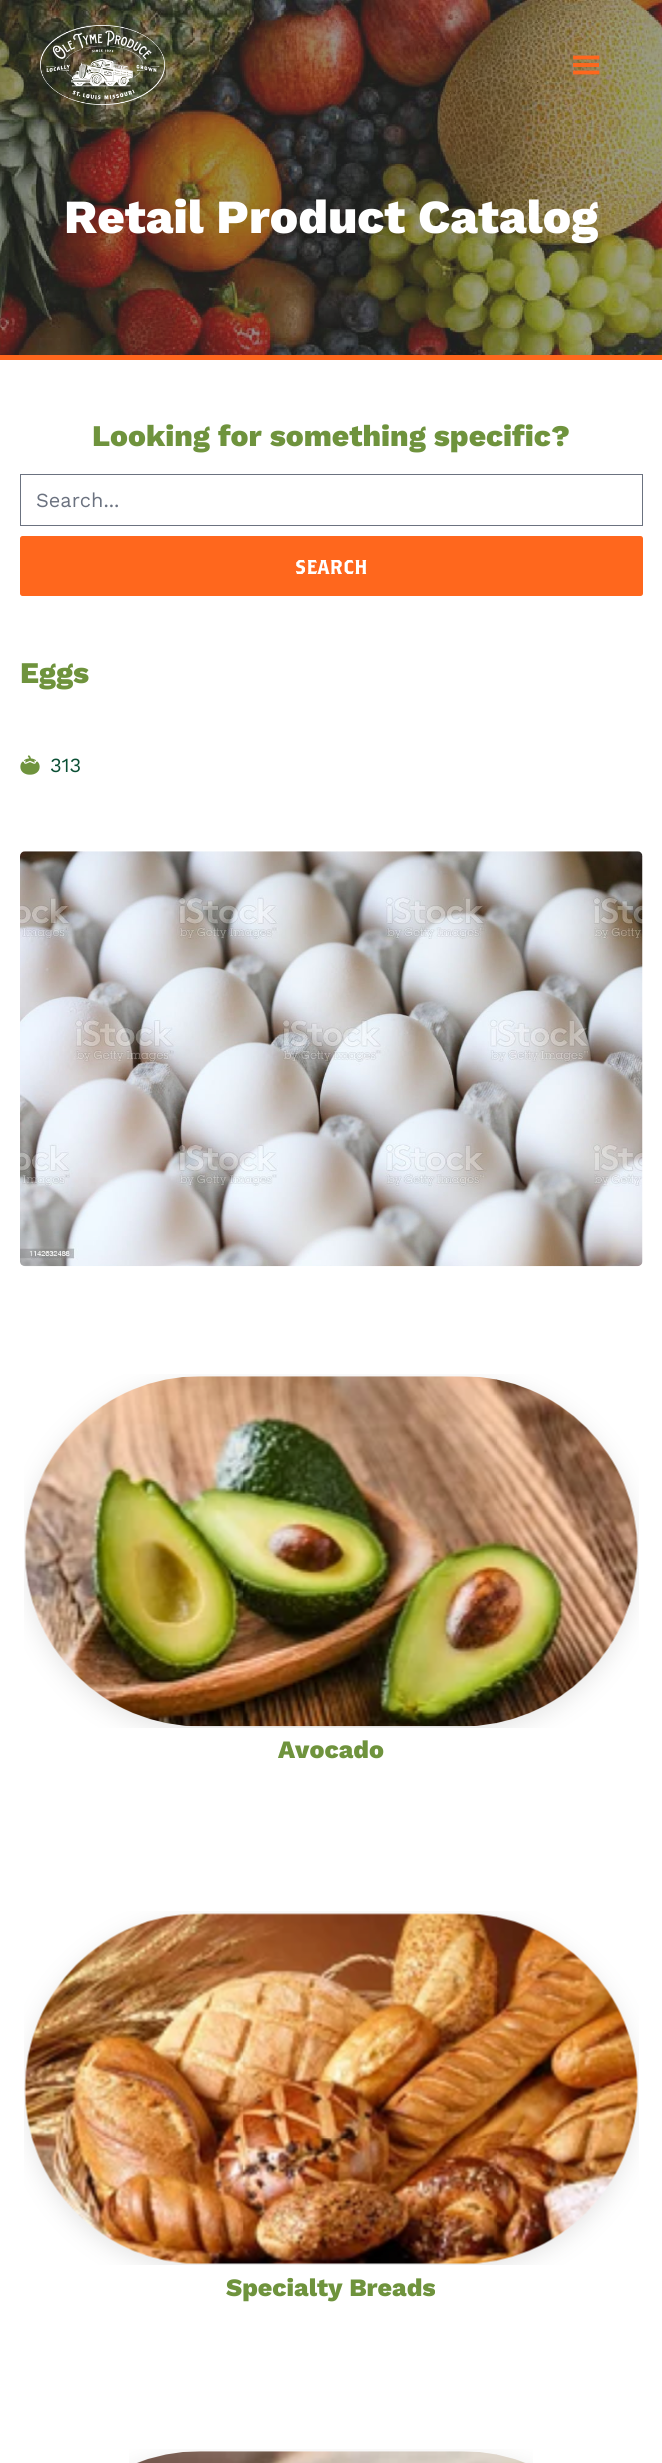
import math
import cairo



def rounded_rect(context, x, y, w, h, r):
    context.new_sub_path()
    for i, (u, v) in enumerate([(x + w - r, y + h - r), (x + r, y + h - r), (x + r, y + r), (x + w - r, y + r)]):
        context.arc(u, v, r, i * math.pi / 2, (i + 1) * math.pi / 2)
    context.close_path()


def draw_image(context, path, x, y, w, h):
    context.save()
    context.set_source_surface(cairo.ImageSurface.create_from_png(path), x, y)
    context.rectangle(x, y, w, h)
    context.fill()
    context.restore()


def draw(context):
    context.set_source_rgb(1, 1, 1)
    context.paint()
    draw_image(context, "images/2.png", 0, 0, 662, 355)
    draw_image(context, "images/1.png", 40, 25, 125, 80)
    context.set_source_rgba(1, 103 / 255, 29 / 255, 0.95)
    context.rectangle(573, 63, 26, 4)
    context.fill()
    context.new_path()
    context.move_to(575, 57.5)
    context.line_to(597.5, 57.5)
    context.move_to(575, 72.5)
    context.line_to(597.5, 72.5)
    context.set_source_rgb(1, 103 / 255, 29 / 255)
    context.set_line_width(3.8)
    context.set_line_cap(cairo.LineCap.SQUARE)
    context.set_line_join(cairo.LineJoin.ROUND)
    context.stroke()
    context.rectangle(0, 355, 662, 5)
    context.fill()
    context.rectangle(20.5, 474.5, 622, 51)
    context.set_source_rgb(107 / 255, 114 / 255, 128 / 255)
    context.set_line_width(1)
    context.set_line_cap(cairo.LineCap.BUTT)
    context.set_line_join(cairo.LineJoin.MITER)
    context.stroke()
    context.set_source_rgb(1, 103 / 255, 29 / 255)
    rounded_rect(context, 20, 536, 623, 60, 2.5)
    context.fill()
    draw_image(context, "images/3.png", 20, 755, 20, 20)
    draw_image(context, "images/4.png", 20, 851, 623, 416)
    draw_image(context, "images/5.png", 24, 1374, 615, 354)
    draw_image(context, "images/6.png", 24, 1911, 615, 354)
    draw_image(context, "images/7.png", 129, 2449, 404, 14)
    context.select_font_face("Work Sans ExtraBold")
    context.set_font_size(47.5)
    context.set_source_rgb(1, 1, 1)
    context.move_to(64, 233)
    context.show_text("Retail Product Catalog")
    context.set_font_size(30)
    context.set_source_rgb(111 / 255, 147 / 255, 61 / 255)
    context.move_to(92, 446)
    context.show_text("Looking for something specific?")
    context.select_font_face("Work Sans")
    context.set_font_size(20)
    context.set_source_rgb(107 / 255, 114 / 255, 128 / 255)
    context.move_to(36, 507)
    context.show_text("Search...")
    context.select_font_face("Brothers")
    context.set_source_rgb(1, 1, 1)
    context.move_to(295, 574)
    context.show_text("SEARCH")
    context.select_font_face("Work Sans ExtraBold")
    context.set_font_size(30)
    context.set_source_rgb(111 / 255, 147 / 255, 61 / 255)
    context.move_to(20, 683)
    context.show_text("Eggs")
    context.select_font_face("Work Sans")
    context.set_font_size(20)
    context.set_source_rgb(10 / 255, 79 / 255, 52 / 255)
    context.move_to(50, 772)
    context.show_text("313")
    context.select_font_face("Work Sans ExtraBold")
    context.set_font_size(25)
    context.set_source_rgb(111 / 255, 147 / 255, 61 / 255)
    context.move_to(278, 1758)
    context.show_text("Avocado")
    context.move_to(226, 2296)
    context.show_text("Specialty Breads")


surface = cairo.ImageSurface(cairo.Format.RGB24, 662, 2463)
context = cairo.Context(surface)
options = cairo.FontOptions()
options.set_hint_metrics(cairo.HintMetrics.OFF)
options.set_hint_style(cairo.HintStyle.NONE)
context.set_font_options(options)
context.set_miter_limit(4)
draw(context)
surface.write_to_png("out.png")
